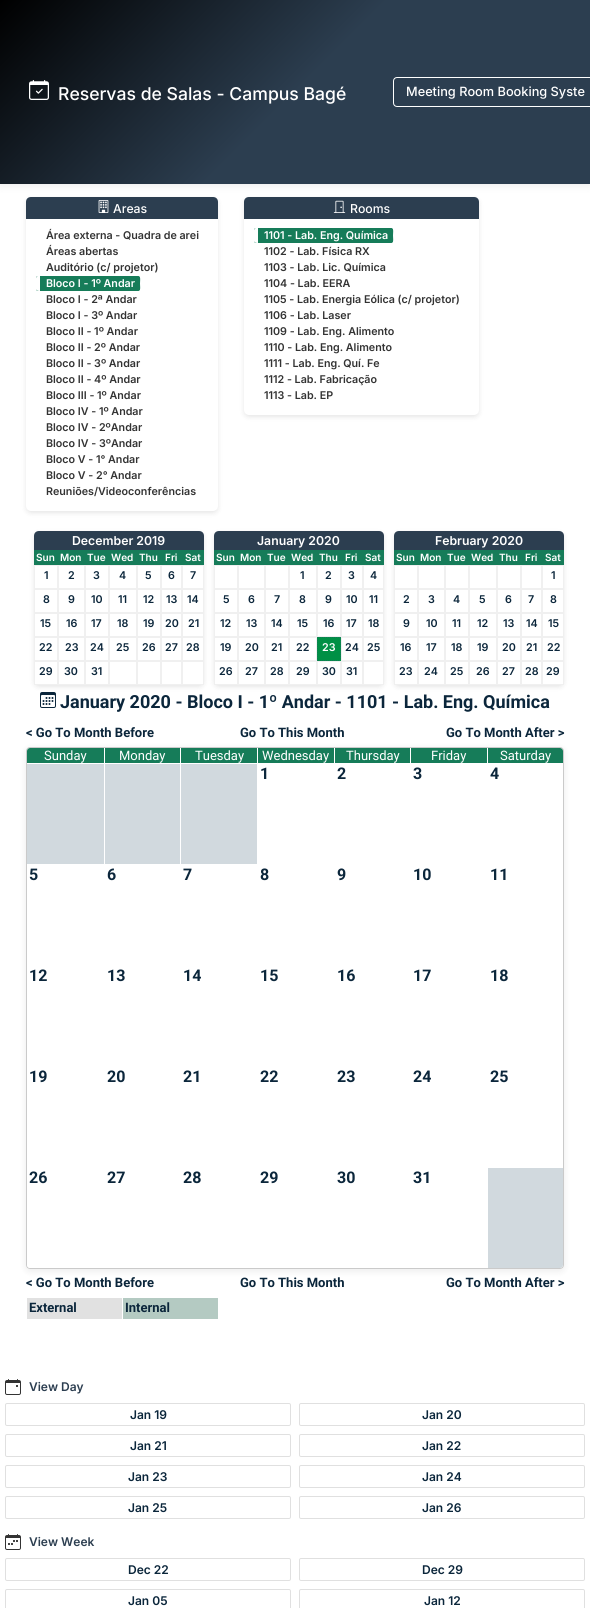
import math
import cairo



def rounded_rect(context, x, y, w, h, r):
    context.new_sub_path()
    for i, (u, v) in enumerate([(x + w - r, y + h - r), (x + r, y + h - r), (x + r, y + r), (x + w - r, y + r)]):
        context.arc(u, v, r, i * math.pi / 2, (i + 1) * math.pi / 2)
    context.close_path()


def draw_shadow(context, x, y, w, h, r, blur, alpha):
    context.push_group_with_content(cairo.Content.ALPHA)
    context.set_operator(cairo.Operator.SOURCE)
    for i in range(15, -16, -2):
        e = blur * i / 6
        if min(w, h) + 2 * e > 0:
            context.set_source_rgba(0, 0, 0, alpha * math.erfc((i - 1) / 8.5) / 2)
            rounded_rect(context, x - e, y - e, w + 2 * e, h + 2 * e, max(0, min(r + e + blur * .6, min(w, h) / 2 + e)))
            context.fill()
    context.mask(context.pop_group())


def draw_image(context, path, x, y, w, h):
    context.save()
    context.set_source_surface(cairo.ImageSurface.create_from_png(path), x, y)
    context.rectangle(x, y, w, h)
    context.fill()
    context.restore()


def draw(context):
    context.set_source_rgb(1, 1, 1)
    context.paint()
    context.set_source_rgb(0, 0, 0)
    draw_shadow(context, 26, 199, 192, 314, 5, 2.5, 0.1)
    context.set_source_rgb(1, 1, 1)
    rounded_rect(context, 26, 197, 192, 314, 5)
    context.fill()
    context.set_source_rgb(44 / 255, 62 / 255, 80 / 255)
    context.new_path()
    context.move_to(31, 197)
    context.line_to(213, 197)
    context.curve_to(216, 197, 218, 199, 218, 202)
    context.line_to(218, 219)
    context.line_to(26, 219)
    context.line_to(26, 202)
    context.curve_to(26, 199, 28, 197, 31, 197)
    context.close_path()
    context.fill()
    context.set_source_rgb(0, 0, 0)
    draw_shadow(context, 244, 199, 235, 218, 5, 2.5, 0.1)
    context.set_source_rgb(1, 1, 1)
    rounded_rect(context, 244, 197, 235, 218, 5)
    context.fill()
    context.set_source_rgb(44 / 255, 62 / 255, 80 / 255)
    context.new_path()
    context.move_to(249, 197)
    context.line_to(474, 197)
    context.curve_to(477, 197, 479, 199, 479, 202)
    context.line_to(479, 219)
    context.line_to(244, 219)
    context.line_to(244, 202)
    context.curve_to(244, 199, 246, 197, 249, 197)
    context.close_path()
    context.fill()
    context.set_source_rgb(0, 0, 0)
    draw_shadow(context, 0, 0, 590, 184, 0, 5, 0.1)
    gradient = cairo.LinearGradient(102, -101, 489, 286)
    gradient.add_color_stop_rgba(0, 0, 0, 0, 1)
    gradient.add_color_stop_rgba(0.5, 44 / 255, 62 / 255, 80 / 255, 1)
    context.set_source(gradient)
    context.rectangle(0, 0, 590, 184)
    context.fill()
    draw_image(context, "images/1.png", 29, 80, 20, 20)
    rounded_rect(context, 393.5, 77.5, 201, 29, 3.5)
    context.set_source_rgb(1, 1, 1)
    context.set_line_width(1)
    context.stroke()
    draw_image(context, "images/2.png", 98, 200, 11, 13)
    context.set_source_rgb(22 / 255, 124 / 255, 89 / 255)
    rounded_rect(context, 36, 276, 104, 15, 2)
    context.fill()
    context.new_path()
    context.move_to(136, 291)
    context.curve_to(141.5, 291, 140, 288.5, 140, 283.5)
    context.curve_to(140, 278.5, 141.5, 276, 136, 276)
    context.close_path()
    context.fill()
    context.set_source_rgb(1, 1, 1)
    context.new_path()
    context.move_to(38, 276)
    context.curve_to(35, 276, 36, 282, 36, 283.5)
    context.curve_to(36, 288.5, 34.5, 291, 40, 291)
    context.line_to(40, 276)
    context.close_path()
    context.fill()
    draw_image(context, "images/3.png", 333, 200, 13, 13)
    context.set_source_rgb(22 / 255, 124 / 255, 89 / 255)
    rounded_rect(context, 254, 228, 139, 15, 2)
    context.fill()
    context.new_path()
    context.move_to(389, 243)
    context.curve_to(394.5, 243, 393, 240.5, 393, 235.5)
    context.curve_to(393, 230.5, 394.5, 228, 389, 228)
    context.close_path()
    context.fill()
    context.set_source_rgb(1, 1, 1)
    context.new_path()
    context.move_to(256, 228)
    context.curve_to(253, 228, 254, 234, 254, 235.5)
    context.curve_to(254, 240.5, 252.5, 243, 258, 243)
    context.line_to(258, 228)
    context.close_path()
    context.fill()
    context.save()
    context.set_fill_rule(cairo.FillRule.EVEN_ODD)
    context.new_path()
    context.move_to(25, 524)
    context.line_to(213, 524)
    context.line_to(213, 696)
    context.line_to(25, 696)
    context.close_path()
    context.move_to(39, 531)
    context.line_to(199, 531)
    context.curve_to(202, 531, 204, 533, 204, 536)
    context.line_to(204, 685)
    context.line_to(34, 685)
    context.line_to(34, 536)
    context.curve_to(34, 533, 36, 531, 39, 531)
    context.close_path()
    context.clip()
    context.set_source_rgb(0, 0, 0)
    draw_shadow(context, 34, 533, 170, 154, 5, 2.5, 0.1)
    context.restore()
    context.set_source_rgb(44 / 255, 62 / 255, 80 / 255)
    context.new_path()
    context.move_to(39, 531)
    context.line_to(199, 531)
    context.curve_to(202, 531, 204, 533, 204, 536)
    context.line_to(204, 550)
    context.line_to(34, 550)
    context.line_to(34, 536)
    context.curve_to(34, 533, 36, 531, 39, 531)
    context.close_path()
    context.fill()
    context.set_source_rgb(22 / 255, 124 / 255, 89 / 255)
    context.rectangle(34, 550, 170, 15)
    context.fill()
    context.rectangle(34.5, 565.5, 23, 23)
    context.set_source_rgb(240 / 255, 240 / 255, 240 / 255)
    context.stroke()
    context.rectangle(58.5, 565.5, 26, 23)
    context.stroke()
    context.rectangle(85.5, 565.5, 23, 23)
    context.stroke()
    context.rectangle(109.5, 565.5, 27, 23)
    context.stroke()
    context.rectangle(137.5, 565.5, 23, 23)
    context.stroke()
    context.rectangle(161.5, 565.5, 20, 23)
    context.stroke()
    context.rectangle(182.5, 565.5, 21, 23)
    context.stroke()
    context.rectangle(34.5, 589.5, 23, 23)
    context.stroke()
    context.rectangle(58.5, 589.5, 26, 23)
    context.stroke()
    context.rectangle(85.5, 589.5, 23, 23)
    context.stroke()
    context.rectangle(109.5, 589.5, 27, 23)
    context.stroke()
    context.rectangle(137.5, 589.5, 23, 23)
    context.stroke()
    context.rectangle(161.5, 589.5, 20, 23)
    context.stroke()
    context.rectangle(182.5, 589.5, 21, 23)
    context.stroke()
    context.rectangle(34.5, 613.5, 23, 23)
    context.stroke()
    context.rectangle(58.5, 613.5, 26, 23)
    context.stroke()
    context.rectangle(85.5, 613.5, 23, 23)
    context.stroke()
    context.rectangle(109.5, 613.5, 27, 23)
    context.stroke()
    context.rectangle(137.5, 613.5, 23, 23)
    context.stroke()
    context.rectangle(161.5, 613.5, 20, 23)
    context.stroke()
    context.rectangle(182.5, 613.5, 21, 23)
    context.stroke()
    context.rectangle(34.5, 637.5, 23, 23)
    context.stroke()
    context.rectangle(58.5, 637.5, 26, 23)
    context.stroke()
    context.rectangle(85.5, 637.5, 23, 23)
    context.stroke()
    context.rectangle(109.5, 637.5, 27, 23)
    context.stroke()
    context.rectangle(137.5, 637.5, 23, 23)
    context.stroke()
    context.rectangle(161.5, 637.5, 20, 23)
    context.stroke()
    context.rectangle(182.5, 637.5, 21, 23)
    context.stroke()
    context.rectangle(34.5, 661.5, 23, 23)
    context.stroke()
    context.rectangle(58.5, 661.5, 26, 23)
    context.stroke()
    context.rectangle(85.5, 661.5, 23, 23)
    context.stroke()
    context.rectangle(109.5, 661.5, 27, 23)
    context.stroke()
    context.rectangle(137.5, 661.5, 23, 23)
    context.stroke()
    context.rectangle(161.5, 661.5, 20, 23)
    context.stroke()
    context.rectangle(182.5, 661.5, 21, 23)
    context.stroke()
    context.save()
    context.set_fill_rule(cairo.FillRule.EVEN_ODD)
    context.new_path()
    context.move_to(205, 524)
    context.line_to(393, 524)
    context.line_to(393, 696)
    context.line_to(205, 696)
    context.close_path()
    context.move_to(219, 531)
    context.line_to(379, 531)
    context.curve_to(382, 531, 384, 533, 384, 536)
    context.line_to(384, 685)
    context.line_to(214, 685)
    context.line_to(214, 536)
    context.curve_to(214, 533, 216, 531, 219, 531)
    context.close_path()
    context.clip()
    context.set_source_rgb(0, 0, 0)
    draw_shadow(context, 214, 533, 170, 154, 5, 2.5, 0.1)
    context.restore()
    context.set_source_rgb(44 / 255, 62 / 255, 80 / 255)
    context.new_path()
    context.move_to(219, 531)
    context.line_to(379, 531)
    context.curve_to(382, 531, 384, 533, 384, 536)
    context.line_to(384, 550)
    context.line_to(214, 550)
    context.line_to(214, 536)
    context.curve_to(214, 533, 216, 531, 219, 531)
    context.close_path()
    context.fill()
    context.set_source_rgb(22 / 255, 124 / 255, 89 / 255)
    context.rectangle(214, 550, 170, 15)
    context.fill()
    context.rectangle(214.5, 565.5, 23, 23)
    context.set_source_rgb(240 / 255, 240 / 255, 240 / 255)
    context.stroke()
    context.rectangle(238.5, 565.5, 26, 23)
    context.stroke()
    context.rectangle(265.5, 565.5, 23, 23)
    context.stroke()
    context.rectangle(289.5, 565.5, 27, 23)
    context.stroke()
    context.rectangle(317.5, 565.5, 23, 23)
    context.stroke()
    context.rectangle(341.5, 565.5, 21, 23)
    context.stroke()
    context.rectangle(363.5, 565.5, 20, 23)
    context.stroke()
    context.rectangle(214.5, 589.5, 23, 23)
    context.stroke()
    context.rectangle(238.5, 589.5, 26, 23)
    context.stroke()
    context.rectangle(265.5, 589.5, 23, 23)
    context.stroke()
    context.rectangle(289.5, 589.5, 27, 23)
    context.stroke()
    context.rectangle(317.5, 589.5, 23, 23)
    context.stroke()
    context.rectangle(341.5, 589.5, 21, 23)
    context.stroke()
    context.rectangle(363.5, 589.5, 20, 23)
    context.stroke()
    context.rectangle(214.5, 613.5, 23, 23)
    context.stroke()
    context.rectangle(238.5, 613.5, 26, 23)
    context.stroke()
    context.rectangle(265.5, 613.5, 23, 23)
    context.stroke()
    context.rectangle(289.5, 613.5, 27, 23)
    context.stroke()
    context.rectangle(317.5, 613.5, 23, 23)
    context.stroke()
    context.rectangle(341.5, 613.5, 21, 23)
    context.stroke()
    context.rectangle(363.5, 613.5, 20, 23)
    context.stroke()
    context.rectangle(214.5, 637.5, 23, 23)
    context.stroke()
    context.rectangle(238.5, 637.5, 26, 23)
    context.stroke()
    context.rectangle(265.5, 637.5, 23, 23)
    context.stroke()
    context.rectangle(289.5, 637.5, 27, 23)
    context.stroke()
    context.set_source_rgb(0, 144 / 255, 69 / 255)
    context.rectangle(317, 637, 24, 24)
    context.fill()
    context.new_path()
    context.move_to(317, 637.5)
    context.line_to(341, 637.5)
    context.move_to(340.5, 637)
    context.line_to(340.5, 661)
    context.move_to(317, 660.5)
    context.line_to(341, 660.5)
    context.move_to(317.5, 637)
    context.line_to(317.5, 661)
    context.set_source_rgb(22 / 255, 124 / 255, 89 / 255)
    context.set_dash([1, 1])
    context.stroke()
    context.rectangle(341.5, 637.5, 21, 23)
    context.set_source_rgb(240 / 255, 240 / 255, 240 / 255)
    context.set_dash([])
    context.stroke()
    context.rectangle(363.5, 637.5, 20, 23)
    context.stroke()
    context.rectangle(214.5, 661.5, 23, 23)
    context.stroke()
    context.rectangle(238.5, 661.5, 26, 23)
    context.stroke()
    context.rectangle(265.5, 661.5, 23, 23)
    context.stroke()
    context.rectangle(289.5, 661.5, 27, 23)
    context.stroke()
    context.rectangle(317.5, 661.5, 23, 23)
    context.stroke()
    context.rectangle(341.5, 661.5, 21, 23)
    context.stroke()
    context.rectangle(363.5, 661.5, 20, 23)
    context.stroke()
    context.save()
    context.set_fill_rule(cairo.FillRule.EVEN_ODD)
    context.new_path()
    context.move_to(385, 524)
    context.line_to(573, 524)
    context.line_to(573, 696)
    context.line_to(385, 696)
    context.close_path()
    context.move_to(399, 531)
    context.line_to(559, 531)
    context.curve_to(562, 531, 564, 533, 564, 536)
    context.line_to(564, 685)
    context.line_to(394, 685)
    context.line_to(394, 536)
    context.curve_to(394, 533, 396, 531, 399, 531)
    context.close_path()
    context.clip()
    context.set_source_rgb(0, 0, 0)
    draw_shadow(context, 394, 533, 170, 154, 5, 2.5, 0.1)
    context.restore()
    context.set_source_rgb(44 / 255, 62 / 255, 80 / 255)
    context.new_path()
    context.move_to(399, 531)
    context.line_to(559, 531)
    context.curve_to(562, 531, 564, 533, 564, 536)
    context.line_to(564, 550)
    context.line_to(394, 550)
    context.line_to(394, 536)
    context.curve_to(394, 533, 396, 531, 399, 531)
    context.close_path()
    context.fill()
    context.set_source_rgb(22 / 255, 124 / 255, 89 / 255)
    context.rectangle(394, 550, 170, 15)
    context.fill()
    context.rectangle(394.5, 565.5, 23, 23)
    context.set_source_rgb(240 / 255, 240 / 255, 240 / 255)
    context.stroke()
    context.rectangle(418.5, 565.5, 26, 23)
    context.stroke()
    context.rectangle(445.5, 565.5, 23, 23)
    context.stroke()
    context.rectangle(469.5, 565.5, 27, 23)
    context.stroke()
    context.rectangle(497.5, 565.5, 23, 23)
    context.stroke()
    context.rectangle(521.5, 565.5, 20, 23)
    context.stroke()
    context.rectangle(542.5, 565.5, 21, 23)
    context.stroke()
    context.rectangle(394.5, 589.5, 23, 23)
    context.stroke()
    context.rectangle(418.5, 589.5, 26, 23)
    context.stroke()
    context.rectangle(445.5, 589.5, 23, 23)
    context.stroke()
    context.rectangle(469.5, 589.5, 27, 23)
    context.stroke()
    context.rectangle(497.5, 589.5, 23, 23)
    context.stroke()
    context.rectangle(521.5, 589.5, 20, 23)
    context.stroke()
    context.rectangle(542.5, 589.5, 21, 23)
    context.stroke()
    context.rectangle(394.5, 613.5, 23, 23)
    context.stroke()
    context.rectangle(418.5, 613.5, 26, 23)
    context.stroke()
    context.rectangle(445.5, 613.5, 23, 23)
    context.stroke()
    context.rectangle(469.5, 613.5, 27, 23)
    context.stroke()
    context.rectangle(497.5, 613.5, 23, 23)
    context.stroke()
    context.rectangle(521.5, 613.5, 20, 23)
    context.stroke()
    context.rectangle(542.5, 613.5, 21, 23)
    context.stroke()
    context.rectangle(394.5, 637.5, 23, 23)
    context.stroke()
    context.rectangle(418.5, 637.5, 26, 23)
    context.stroke()
    context.rectangle(445.5, 637.5, 23, 23)
    context.stroke()
    context.rectangle(469.5, 637.5, 27, 23)
    context.stroke()
    context.rectangle(497.5, 637.5, 23, 23)
    context.stroke()
    context.rectangle(521.5, 637.5, 20, 23)
    context.stroke()
    context.rectangle(542.5, 637.5, 21, 23)
    context.stroke()
    context.rectangle(394.5, 661.5, 23, 23)
    context.stroke()
    context.rectangle(418.5, 661.5, 26, 23)
    context.stroke()
    context.rectangle(445.5, 661.5, 23, 23)
    context.stroke()
    context.rectangle(469.5, 661.5, 27, 23)
    context.stroke()
    context.rectangle(497.5, 661.5, 23, 23)
    context.stroke()
    context.rectangle(521.5, 661.5, 20, 23)
    context.stroke()
    context.rectangle(542.5, 661.5, 21, 23)
    context.stroke()
    draw_image(context, "images/4.png", 40, 692, 16, 16)
    context.save()
    context.set_fill_rule(cairo.FillRule.EVEN_ODD)
    context.new_path()
    context.move_to(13, 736)
    context.line_to(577, 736)
    context.line_to(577, 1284)
    context.line_to(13, 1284)
    context.close_path()
    context.move_to(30, 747)
    context.line_to(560, 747)
    context.curve_to(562, 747, 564, 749, 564, 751)
    context.line_to(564, 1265)
    context.curve_to(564, 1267, 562, 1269, 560, 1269)
    context.line_to(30, 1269)
    context.curve_to(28, 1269, 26, 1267, 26, 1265)
    context.line_to(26, 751)
    context.curve_to(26, 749, 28, 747, 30, 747)
    context.close_path()
    context.clip()
    context.set_source_rgb(0, 0, 0)
    draw_shadow(context, 26, 749, 538, 522, 4, 4, 0.08)
    context.restore()
    rounded_rect(context, 26.5, 747.5, 537, 521, 3.5)
    context.set_source_rgb(202 / 255, 202 / 255, 202 / 255)
    context.stroke()
    context.set_source_rgb(22 / 255, 124 / 255, 89 / 255)
    context.new_path()
    context.move_to(30, 748)
    context.line_to(104, 748)
    context.line_to(104, 763)
    context.line_to(27, 763)
    context.line_to(27, 751)
    context.curve_to(27, 749.5, 28.5, 748, 30, 748)
    context.close_path()
    context.fill()
    context.rectangle(105, 748, 75, 15)
    context.fill()
    context.rectangle(181, 748, 76, 15)
    context.fill()
    context.rectangle(258, 748, 76, 15)
    context.fill()
    context.rectangle(335, 748, 75, 15)
    context.fill()
    context.rectangle(411, 748, 76, 15)
    context.fill()
    context.new_path()
    context.move_to(487, 748)
    context.line_to(560, 748)
    context.curve_to(561.5, 748, 563, 749.5, 563, 751)
    context.line_to(563, 763)
    context.line_to(487, 763)
    context.close_path()
    context.fill()
    context.set_source_rgb(1, 1, 1)
    context.rectangle(487, 748, 1, 15)
    context.fill()
    context.set_source_rgb(209 / 255, 217 / 255, 222 / 255)
    context.rectangle(27, 764, 77, 100)
    context.fill()
    context.rectangle(105, 764, 75, 100)
    context.fill()
    context.rectangle(181, 764, 76, 100)
    context.fill()
    context.set_source_rgb(1, 1, 1)
    context.new_path()
    context.move_to(27, 1167)
    context.line_to(104, 1167)
    context.line_to(104, 1268)
    context.line_to(30, 1268)
    context.curve_to(28.5, 1268, 27, 1266.5, 27, 1265)
    context.close_path()
    context.fill()
    context.set_source_rgb(209 / 255, 217 / 255, 222 / 255)
    context.new_path()
    context.move_to(487, 1167)
    context.line_to(563, 1167)
    context.line_to(563, 1265)
    context.curve_to(563, 1266.5, 561.5, 1268, 560, 1268)
    context.line_to(487, 1268)
    context.close_path()
    context.fill()
    context.set_source_rgb(1, 1, 1)
    context.rectangle(487, 1167, 76, 1)
    context.fill()
    context.rectangle(487, 1167, 1, 101)
    context.fill()
    context.set_source_rgb(225 / 255, 225 / 255, 225 / 255)
    context.rectangle(27, 1298, 95, 21)
    context.fill()
    context.set_source_rgb(180 / 255, 202 / 255, 194 / 255)
    context.rectangle(123, 1298, 95, 21)
    context.fill()
    draw_image(context, "images/5.png", 5, 1379, 16, 16)
    rounded_rect(context, 5.5, 1403.5, 285, 22, 1.5)
    context.set_source_rgb(224 / 255, 224 / 255, 224 / 255)
    context.stroke()
    rounded_rect(context, 299.5, 1403.5, 285, 22, 1.5)
    context.stroke()
    rounded_rect(context, 5.5, 1434.5, 285, 22, 1.5)
    context.stroke()
    rounded_rect(context, 299.5, 1434.5, 285, 22, 1.5)
    context.stroke()
    rounded_rect(context, 5.5, 1465.5, 285, 22, 1.5)
    context.stroke()
    rounded_rect(context, 299.5, 1465.5, 285, 22, 1.5)
    context.stroke()
    rounded_rect(context, 5.5, 1496.5, 285, 22, 1.5)
    context.stroke()
    rounded_rect(context, 299.5, 1496.5, 285, 22, 1.5)
    context.stroke()
    draw_image(context, "images/6.png", 5, 1534, 16, 16)
    rounded_rect(context, 5.5, 1558.5, 285, 22, 1.5)
    context.stroke()
    rounded_rect(context, 299.5, 1558.5, 285, 22, 1.5)
    context.stroke()
    rounded_rect(context, 5.5, 1589.5, 285, 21, 1.5)
    context.stroke()
    rounded_rect(context, 299.5, 1589.5, 285, 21, 1.5)
    context.stroke()
    context.select_font_face("Inter Medium")
    context.set_font_size(17.6)
    context.set_source_rgb(1, 1, 1)
    context.move_to(58, 100)
    context.show_text("Reservas de Salas - Campus Bagé")
    context.set_font_size(12.75)
    context.move_to(406, 96)
    context.show_text("Meeting Room Booking Syste")
    context.set_font_size(12.25)
    context.move_to(113, 213)
    context.show_text("Areas")
    context.select_font_face("Inter SemiBold")
    context.set_font_size(10.7)
    context.set_source_rgb(51 / 255, 51 / 255, 51 / 255)
    context.move_to(46, 239)
    context.show_text("Área externa - Quadra de arei")
    context.move_to(46, 255)
    context.show_text("Áreas abertas")
    context.move_to(46, 271)
    context.show_text("Auditório (c/ projetor)")
    context.set_source_rgb(1, 1, 1)
    context.move_to(46, 287)
    context.show_text("Bloco I - 1º Andar")
    context.set_source_rgb(51 / 255, 51 / 255, 51 / 255)
    context.move_to(46, 303)
    context.show_text("Bloco I - 2ª Andar")
    context.move_to(46, 319)
    context.show_text("Bloco I - 3º Andar")
    context.move_to(46, 335)
    context.show_text("Bloco II - 1º Andar")
    context.move_to(46, 351)
    context.show_text("Bloco II - 2º Andar")
    context.move_to(46, 367)
    context.show_text("Bloco II - 3º Andar")
    context.move_to(46, 383)
    context.show_text("Bloco II - 4º Andar")
    context.move_to(46, 399)
    context.show_text("Bloco III - 1º Andar")
    context.move_to(46, 415)
    context.show_text("Bloco IV - 1º Andar")
    context.move_to(46, 431)
    context.show_text("Bloco IV - 2ºAndar")
    context.move_to(46, 447)
    context.show_text("Bloco IV - 3ºAndar")
    context.move_to(46, 463)
    context.show_text("Bloco V - 1° Andar")
    context.move_to(46, 479)
    context.show_text("Bloco V - 2° Andar")
    context.move_to(46, 495)
    context.show_text("Reuniões/Videoconferências")
    context.select_font_face("Inter Medium")
    context.set_font_size(12.25)
    context.set_source_rgb(1, 1, 1)
    context.move_to(350, 213)
    context.show_text("Rooms")
    context.select_font_face("Inter SemiBold")
    context.set_font_size(10.7)
    context.move_to(264, 239)
    context.show_text("1101 - Lab. Eng. Química")
    context.set_source_rgb(51 / 255, 51 / 255, 51 / 255)
    context.move_to(264, 255)
    context.show_text("1102 - Lab. Física RX")
    context.move_to(264, 271)
    context.show_text("1103 - Lab. Lic. Química")
    context.move_to(264, 287)
    context.show_text("1104 - Lab. EERA")
    context.move_to(264, 303)
    context.show_text("1105 - Lab. Energia Eólica (c/ projetor)")
    context.move_to(264, 319)
    context.show_text("1106 - Lab. Laser")
    context.move_to(264, 335)
    context.show_text("1109 - Lab. Eng. Alimento")
    context.move_to(264, 351)
    context.show_text("1110 - Lab. Eng. Alimento")
    context.move_to(264, 367)
    context.show_text("1111 - Lab. Eng. Quí. Fe")
    context.move_to(264, 383)
    context.show_text("1112 - Lab. Fabricação")
    context.move_to(264, 399)
    context.show_text("1113 - Lab. EP")
    context.set_font_size(12.25)
    context.set_source_rgb(1, 1, 1)
    context.move_to(72, 545)
    context.show_text("December 2019")
    context.set_font_size(10)
    context.move_to(36, 561)
    context.show_text("Sun")
    context.move_to(60, 561)
    context.show_text("Mon")
    context.move_to(87, 561)
    context.show_text("Tue")
    context.move_to(111, 561)
    context.show_text("Wed")
    context.move_to(139, 561)
    context.show_text("Thu")
    context.move_to(165, 561)
    context.show_text("Fri")
    context.move_to(185, 561)
    context.show_text("Sat")
    context.set_font_size(10.7)
    context.set_source_rgb(11 / 255, 38 / 255, 59 / 255)
    context.move_to(44, 579)
    context.show_text("1")
    context.move_to(68, 579)
    context.show_text("2")
    context.move_to(93, 579)
    context.show_text("3")
    context.move_to(119, 579)
    context.show_text("4")
    context.move_to(145, 579)
    context.show_text("5")
    context.move_to(168, 579)
    context.show_text("6")
    context.move_to(190, 579)
    context.show_text("7")
    context.move_to(43, 603)
    context.show_text("8")
    context.move_to(68, 603)
    context.show_text("9")
    context.move_to(91, 603)
    context.show_text("10")
    context.move_to(118, 603)
    context.show_text("11")
    context.move_to(143, 603)
    context.show_text("12")
    context.move_to(166, 603)
    context.show_text("13")
    context.move_to(187, 603)
    context.show_text("14")
    context.move_to(40, 627)
    context.show_text("15")
    context.move_to(66, 627)
    context.show_text("16")
    context.move_to(91, 627)
    context.show_text("17")
    context.move_to(117, 627)
    context.show_text("18")
    context.move_to(143, 627)
    context.show_text("19")
    context.move_to(165, 627)
    context.show_text("20")
    context.move_to(188, 627)
    context.show_text("21")
    context.move_to(39, 651)
    context.show_text("22")
    context.move_to(65, 651)
    context.show_text("23")
    context.move_to(90, 651)
    context.show_text("24")
    context.move_to(116, 651)
    context.show_text("25")
    context.move_to(142, 651)
    context.show_text("26")
    context.move_to(165, 651)
    context.show_text("27")
    context.move_to(186, 651)
    context.show_text("28")
    context.move_to(39, 675)
    context.show_text("29")
    context.move_to(64, 675)
    context.show_text("30")
    context.move_to(91, 675)
    context.show_text("31")
    context.set_font_size(12.25)
    context.set_source_rgb(1, 1, 1)
    context.move_to(257, 545)
    context.show_text("January 2020")
    context.set_font_size(10)
    context.move_to(216, 561)
    context.show_text("Sun")
    context.move_to(240, 561)
    context.show_text("Mon")
    context.move_to(267, 561)
    context.show_text("Tue")
    context.move_to(291, 561)
    context.show_text("Wed")
    context.move_to(319, 561)
    context.show_text("Thu")
    context.move_to(345, 561)
    context.show_text("Fri")
    context.move_to(365, 561)
    context.show_text("Sat")
    context.set_font_size(10.7)
    context.set_source_rgb(11 / 255, 38 / 255, 59 / 255)
    context.move_to(300, 579)
    context.show_text("1")
    context.move_to(325, 579)
    context.show_text("2")
    context.move_to(348, 579)
    context.show_text("3")
    context.move_to(370, 579)
    context.show_text("4")
    context.move_to(223, 603)
    context.show_text("5")
    context.move_to(248, 603)
    context.show_text("6")
    context.move_to(274, 603)
    context.show_text("7")
    context.move_to(299, 603)
    context.show_text("8")
    context.move_to(325, 603)
    context.show_text("9")
    context.move_to(346, 603)
    context.show_text("10")
    context.move_to(369, 603)
    context.show_text("11")
    context.move_to(220, 627)
    context.show_text("12")
    context.move_to(246, 627)
    context.show_text("13")
    context.move_to(271, 627)
    context.show_text("14")
    context.move_to(297, 627)
    context.show_text("15")
    context.move_to(323, 627)
    context.show_text("16")
    context.move_to(346, 627)
    context.show_text("17")
    context.move_to(368, 627)
    context.show_text("18")
    context.move_to(220, 651)
    context.show_text("19")
    context.move_to(245, 651)
    context.show_text("20")
    context.move_to(271, 651)
    context.show_text("21")
    context.move_to(296, 651)
    context.show_text("22")
    context.set_source_rgb(1, 1, 1)
    context.move_to(322, 651)
    context.show_text("23")
    context.set_source_rgb(11 / 255, 38 / 255, 59 / 255)
    context.move_to(345, 651)
    context.show_text("24")
    context.move_to(367, 651)
    context.show_text("25")
    context.move_to(219, 675)
    context.show_text("26")
    context.move_to(245, 675)
    context.show_text("27")
    context.move_to(270, 675)
    context.show_text("28")
    context.move_to(296, 675)
    context.show_text("29")
    context.move_to(322, 675)
    context.show_text("30")
    context.move_to(346, 675)
    context.show_text("31")
    context.set_font_size(12.25)
    context.set_source_rgb(1, 1, 1)
    context.move_to(435, 545)
    context.show_text("February 2020")
    context.set_font_size(10)
    context.move_to(396, 561)
    context.show_text("Sun")
    context.move_to(420, 561)
    context.show_text("Mon")
    context.move_to(447, 561)
    context.show_text("Tue")
    context.move_to(471, 561)
    context.show_text("Wed")
    context.move_to(499, 561)
    context.show_text("Thu")
    context.move_to(525, 561)
    context.show_text("Fri")
    context.move_to(545, 561)
    context.show_text("Sat")
    context.set_font_size(10.7)
    context.set_source_rgb(11 / 255, 38 / 255, 59 / 255)
    context.move_to(551, 579)
    context.show_text("1")
    context.move_to(403, 603)
    context.show_text("2")
    context.move_to(428, 603)
    context.show_text("3")
    context.move_to(453, 603)
    context.show_text("4")
    context.move_to(479, 603)
    context.show_text("5")
    context.move_to(505, 603)
    context.show_text("6")
    context.move_to(528, 603)
    context.show_text("7")
    context.move_to(550, 603)
    context.show_text("8")
    context.move_to(403, 627)
    context.show_text("9")
    context.move_to(426, 627)
    context.show_text("10")
    context.move_to(452, 627)
    context.show_text("11")
    context.move_to(477, 627)
    context.show_text("12")
    context.move_to(503, 627)
    context.show_text("13")
    context.move_to(526, 627)
    context.show_text("14")
    context.move_to(548, 627)
    context.show_text("15")
    context.move_to(400, 651)
    context.show_text("16")
    context.move_to(426, 651)
    context.show_text("17")
    context.move_to(451, 651)
    context.show_text("18")
    context.move_to(477, 651)
    context.show_text("19")
    context.move_to(502, 651)
    context.show_text("20")
    context.move_to(526, 651)
    context.show_text("21")
    context.move_to(547, 651)
    context.show_text("22")
    context.move_to(399, 675)
    context.show_text("23")
    context.move_to(424, 675)
    context.show_text("24")
    context.move_to(450, 675)
    context.show_text("25")
    context.move_to(476, 675)
    context.show_text("26")
    context.move_to(502, 675)
    context.show_text("27")
    context.move_to(525, 675)
    context.show_text("28")
    context.move_to(546, 675)
    context.show_text("29")
    context.select_font_face("Roboto", cairo.FontSlant.NORMAL, cairo.FontWeight.BOLD)
    context.set_font_size(18)
    context.move_to(60, 708)
    context.show_text("January 2020 - Bloco I - 1º Andar - 1101 - Lab. Eng. Química")
    context.set_font_size(13)
    context.move_to(26, 737)
    context.show_text("< Go To Month Before")
    context.move_to(240, 737)
    context.show_text("Go To This Month")
    context.move_to(446, 737)
    context.show_text("Go To Month After >")
    context.select_font_face("Roboto")
    context.set_source_rgb(1, 1, 1)
    context.move_to(44, 760)
    context.show_text("Sunday")
    context.move_to(119, 760)
    context.show_text("Monday")
    context.move_to(195, 760)
    context.show_text("Tuesday")
    context.move_to(262, 760)
    context.show_text("Wednesday")
    context.move_to(346, 760)
    context.show_text("Thursday")
    context.move_to(431, 760)
    context.show_text("Friday")
    context.move_to(500, 760)
    context.show_text("Saturday")
    context.select_font_face("Roboto", cairo.FontSlant.NORMAL, cairo.FontWeight.BOLD)
    context.set_font_size(16)
    context.set_source_rgb(11 / 255, 38 / 255, 59 / 255)
    context.move_to(260, 779)
    context.show_text("1")
    context.move_to(337, 779)
    context.show_text("2")
    context.move_to(413, 779)
    context.show_text("3")
    context.move_to(490, 779)
    context.show_text("4")
    context.move_to(29, 880)
    context.show_text("5")
    context.move_to(107, 880)
    context.show_text("6")
    context.move_to(183, 880)
    context.show_text("7")
    context.move_to(260, 880)
    context.show_text("8")
    context.move_to(337, 880)
    context.show_text("9")
    context.move_to(413, 880)
    context.show_text("10")
    context.move_to(490, 880)
    context.show_text("11")
    context.move_to(29, 981)
    context.show_text("12")
    context.move_to(107, 981)
    context.show_text("13")
    context.move_to(183, 981)
    context.show_text("14")
    context.move_to(260, 981)
    context.show_text("15")
    context.move_to(337, 981)
    context.show_text("16")
    context.move_to(413, 981)
    context.show_text("17")
    context.move_to(490, 981)
    context.show_text("18")
    context.move_to(29, 1082)
    context.show_text("19")
    context.move_to(107, 1082)
    context.show_text("20")
    context.move_to(183, 1082)
    context.show_text("21")
    context.move_to(260, 1082)
    context.show_text("22")
    context.move_to(337, 1082)
    context.show_text("23")
    context.move_to(413, 1082)
    context.show_text("24")
    context.move_to(490, 1082)
    context.show_text("25")
    context.move_to(29, 1183)
    context.show_text("26")
    context.move_to(107, 1183)
    context.show_text("27")
    context.move_to(183, 1183)
    context.show_text("28")
    context.move_to(260, 1183)
    context.show_text("29")
    context.move_to(337, 1183)
    context.show_text("30")
    context.move_to(413, 1183)
    context.show_text("31")
    context.set_font_size(13)
    context.move_to(26, 1287)
    context.show_text("< Go To Month Before")
    context.move_to(240, 1287)
    context.show_text("Go To This Month")
    context.move_to(446, 1287)
    context.show_text("Go To Month After >")
    context.move_to(29, 1312)
    context.show_text("External")
    context.move_to(125, 1312)
    context.show_text("Internal")
    context.select_font_face("Inter SemiBold")
    context.set_font_size(12)
    context.set_source_rgb(44 / 255, 62 / 255, 80 / 255)
    context.move_to(29, 1391)
    context.show_text("View Day")
    context.set_source_rgb(11 / 255, 38 / 255, 59 / 255)
    context.move_to(130, 1419)
    context.show_text("Jan 19")
    context.move_to(422, 1419)
    context.show_text("Jan 20")
    context.move_to(130, 1450)
    context.show_text("Jan 21")
    context.move_to(422, 1450)
    context.show_text("Jan 22")
    context.move_to(128, 1481)
    context.show_text("Jan 23")
    context.move_to(422, 1481)
    context.show_text("Jan 24")
    context.move_to(128, 1512)
    context.show_text("Jan 25")
    context.move_to(422, 1512)
    context.show_text("Jan 26")
    context.set_source_rgb(44 / 255, 62 / 255, 80 / 255)
    context.move_to(29, 1546)
    context.show_text("View Week")
    context.set_source_rgb(11 / 255, 38 / 255, 59 / 255)
    context.move_to(128, 1574)
    context.show_text("Dec 22")
    context.move_to(422, 1574)
    context.show_text("Dec 29")
    context.move_to(128, 1605)
    context.show_text("Jan 05")
    context.move_to(424, 1605)
    context.show_text("Jan 12")


surface = cairo.ImageSurface(cairo.Format.RGB24, 590, 1608)
context = cairo.Context(surface)
options = cairo.FontOptions()
options.set_hint_metrics(cairo.HintMetrics.OFF)
options.set_hint_style(cairo.HintStyle.NONE)
context.set_font_options(options)
context.set_miter_limit(4)
draw(context)
surface.write_to_png("out.png")
